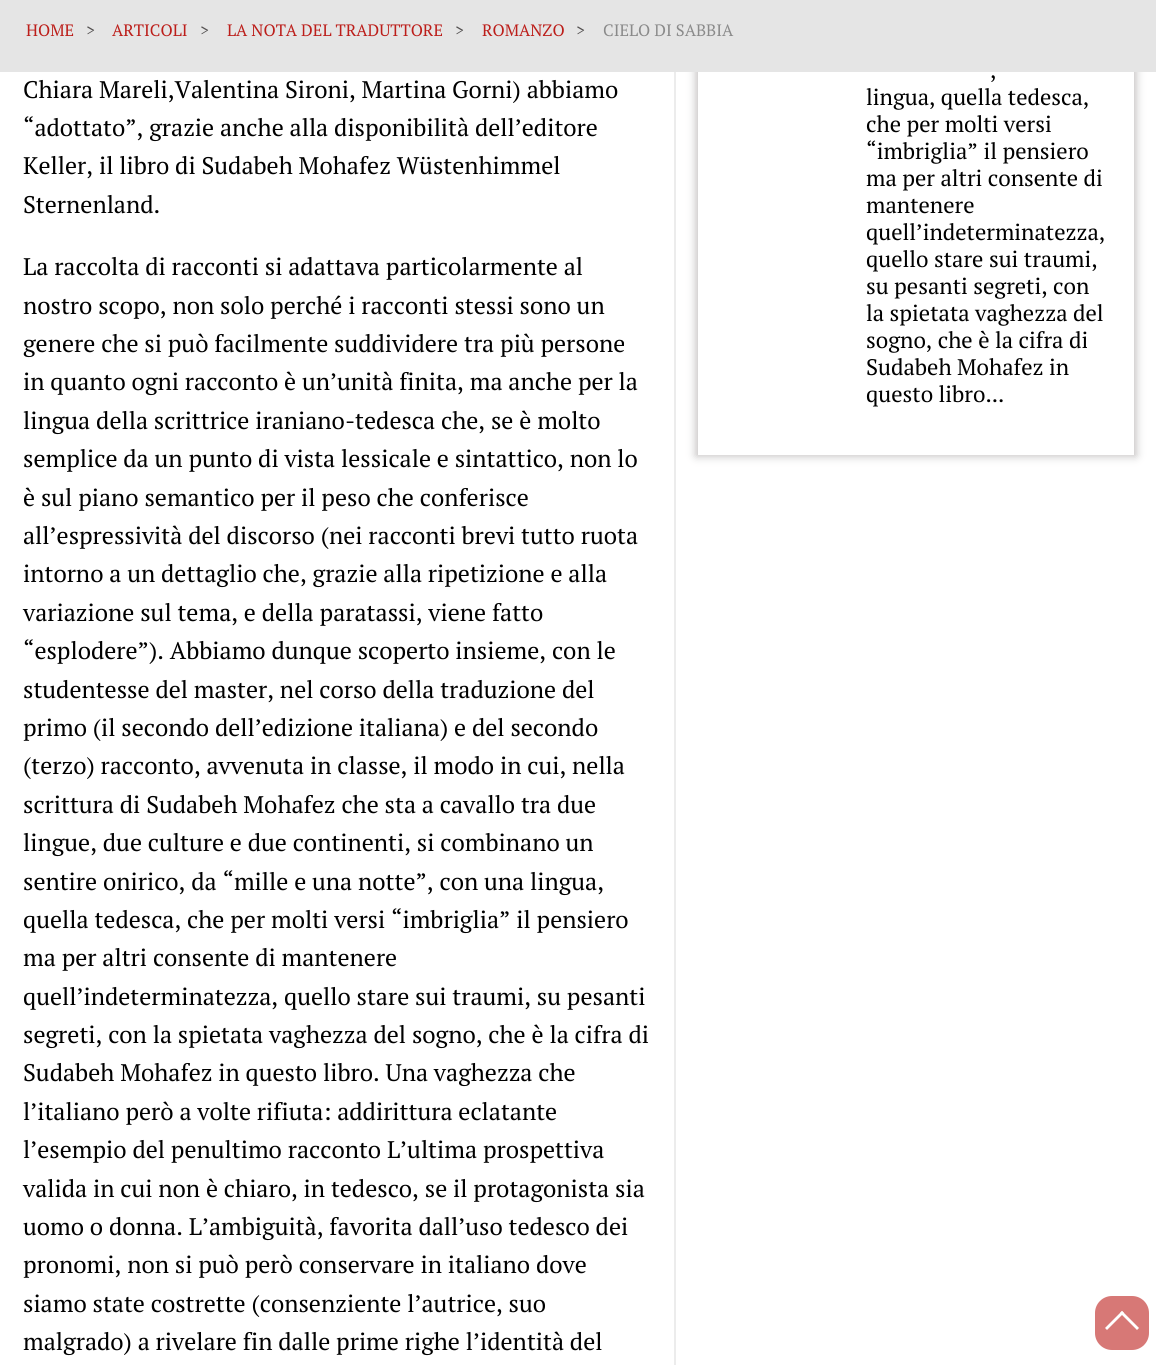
import math
import cairo



def rounded_rect(context, x, y, w, h, r):
    context.new_sub_path()
    for i, (u, v) in enumerate([(x + w - r, y + h - r), (x + r, y + h - r), (x + r, y + r), (x + w - r, y + r)]):
        context.arc(u, v, r, i * math.pi / 2, (i + 1) * math.pi / 2)
    context.close_path()


def draw_shadow(context, x, y, w, h, r, blur, alpha):
    context.push_group_with_content(cairo.Content.ALPHA)
    context.set_operator(cairo.Operator.SOURCE)
    for i in range(15, -16, -2):
        e = blur * i / 6
        if min(w, h) + 2 * e > 0:
            context.set_source_rgba(0, 0, 0, alpha * math.erfc((i - 1) / 8.5) / 2)
            rounded_rect(context, x - e, y - e, w + 2 * e, h + 2 * e, max(0, min(r + e + blur * .6, min(w, h) / 2 + e)))
            context.fill()
    context.mask(context.pop_group())


def draw(context):
    context.set_source_rgb(1, 1, 1)
    context.paint()
    context.set_source_rgb(193 / 255, 190 / 255, 190 / 255)
    draw_shadow(context, 696, -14, 440, 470, 0, 4.5, 1)
    context.set_source_rgb(229 / 255, 229 / 255, 229 / 255)
    context.rectangle(0, 0, 1156, 72)
    context.fill()
    context.set_source_rgb(236 / 255, 236 / 255, 236 / 255)
    context.rectangle(674, 72, 2, 1293)
    context.fill()
    context.set_source_rgb(1, 1, 1)
    context.rectangle(698, 72, 436, 383)
    context.fill()
    context.set_source_rgb(215 / 255, 120 / 255, 118 / 255)
    rounded_rect(context, 1095, 1296, 54, 54, 17)
    context.fill()
    context.set_source_rgb(1, 1, 1)
    context.new_path()
    context.move_to(1105, 1328)
    context.line_to(1122, 1311)
    context.line_to(1124, 1313)
    context.line_to(1107, 1330)
    context.close_path()
    context.fill()
    context.new_path()
    context.move_to(1120, 1313)
    context.line_to(1122, 1311)
    context.line_to(1139, 1328)
    context.line_to(1137, 1330)
    context.close_path()
    context.fill()
    context.select_font_face("PT Serif")
    context.set_font_size(16.5)
    context.set_source_rgb(188 / 255, 30 / 255, 26 / 255)
    context.move_to(26, 36)
    context.show_text("HOME")
    context.set_source_rgb(83 / 255, 80 / 255, 80 / 255)
    context.move_to(86, 36)
    context.show_text(">")
    context.set_source_rgb(188 / 255, 30 / 255, 26 / 255)
    context.move_to(112, 36)
    context.show_text("ARTICOLI")
    context.set_source_rgb(83 / 255, 80 / 255, 80 / 255)
    context.move_to(200, 36)
    context.show_text(">")
    context.set_source_rgb(188 / 255, 30 / 255, 26 / 255)
    context.move_to(227, 36)
    context.show_text("LA NOTA DEL TRADUTTORE")
    context.set_source_rgb(83 / 255, 80 / 255, 80 / 255)
    context.move_to(455, 36)
    context.show_text(">")
    context.set_source_rgb(188 / 255, 30 / 255, 26 / 255)
    context.move_to(482, 36)
    context.show_text("ROMANZO")
    context.set_source_rgb(83 / 255, 80 / 255, 80 / 255)
    context.move_to(576, 36)
    context.show_text(">")
    context.set_source_rgb(138 / 255, 138 / 255, 138 / 255)
    context.move_to(603, 36)
    context.show_text("CIELO DI SABBIA")
    context.set_font_size(24)
    context.set_source_rgb(0, 0, 0)
    context.move_to(23, 98)
    context.show_text("Chiara Mareli,Valentina Sironi, Martina Gorni) abbiamo")
    context.move_to(23, 136)
    context.show_text("“adottato”, grazie anche alla disponibilità dell’editore")
    context.move_to(23, 174)
    context.show_text("Keller, il libro di Sudabeh Mohafez Wüstenhimmel")
    context.move_to(23, 213)
    context.show_text("Sternenland.")
    context.move_to(23, 275)
    context.show_text("La raccolta di racconti si adattava particolarmente al")
    context.move_to(23, 314)
    context.show_text("nostro scopo, non solo perché i racconti stessi sono un")
    context.move_to(23, 352)
    context.show_text("genere che si può facilmente suddividere tra più persone")
    context.move_to(23, 390)
    context.show_text("in quanto ogni racconto è un’unità finita, ma anche per la")
    context.move_to(23, 429)
    context.show_text("lingua della scrittrice iraniano-tedesca che, se è molto")
    context.move_to(23, 467)
    context.show_text("semplice da un punto di vista lessicale e sintattico, non lo")
    context.move_to(23, 506)
    context.show_text("è sul piano semantico per il peso che conferisce")
    context.move_to(23, 544)
    context.show_text("all’espressività del discorso (nei racconti brevi tutto ruota")
    context.move_to(23, 582)
    context.show_text("intorno a un dettaglio che, grazie alla ripetizione e alla")
    context.move_to(23, 621)
    context.show_text("variazione sul tema, e della paratassi, viene fatto")
    context.move_to(23, 659)
    context.show_text("“esplodere”). Abbiamo dunque scoperto insieme, con le")
    context.move_to(23, 698)
    context.show_text("studentesse del master, nel corso della traduzione del")
    context.move_to(23, 736)
    context.show_text("primo (il secondo dell’edizione italiana) e del secondo")
    context.move_to(23, 774)
    context.show_text("(terzo) racconto, avvenuta in classe, il modo in cui, nella")
    context.move_to(23, 813)
    context.show_text("scrittura di Sudabeh Mohafez che sta a cavallo tra due")
    context.move_to(23, 851)
    context.show_text("lingue, due culture e due continenti, si combinano un")
    context.move_to(23, 890)
    context.show_text("sentire onirico, da “mille e una notte”, con una lingua,")
    context.move_to(23, 928)
    context.show_text("quella tedesca, che per molti versi “imbriglia” il pensiero")
    context.move_to(23, 966)
    context.show_text("ma per altri consente di mantenere")
    context.move_to(23, 1005)
    context.show_text("quell’indeterminatezza, quello stare sui traumi, su pesanti")
    context.move_to(23, 1043)
    context.show_text("segreti, con la spietata vaghezza del sogno, che è la cifra di")
    context.move_to(23, 1081)
    context.show_text("Sudabeh Mohafez in questo libro. Una vaghezza che")
    context.move_to(23, 1120)
    context.show_text("l’italiano però a volte rifiuta: addirittura eclatante")
    context.move_to(23, 1158)
    context.show_text("l’esempio del penultimo racconto L’ultima prospettiva")
    context.move_to(23, 1197)
    context.show_text("valida in cui non è chiaro, in tedesco, se il protagonista sia")
    context.move_to(23, 1235)
    context.show_text("uomo o donna. L’ambiguità, favorita dall’uso tedesco dei")
    context.move_to(23, 1273)
    context.show_text("pronomi, non si può però conservare in italiano dove")
    context.move_to(23, 1312)
    context.show_text("siamo state costrette (consenziente l’autrice, suo")
    context.move_to(23, 1350)
    context.show_text("malgrado) a rivelare fin dalle prime righe l’identità del")
    context.set_font_size(22.5)
    context.move_to(990, 78)
    context.show_text(",")
    context.move_to(866, 105)
    context.show_text("lingua, quella tedesca,")
    context.move_to(866, 132)
    context.show_text("che per molti versi")
    context.move_to(866, 159)
    context.show_text("“imbriglia” il pensiero")
    context.move_to(866, 186)
    context.show_text("ma per altri consente di")
    context.move_to(866, 213)
    context.show_text("mantenere")
    context.move_to(866, 240)
    context.show_text("quell’indeterminatezza,")
    context.move_to(866, 267)
    context.show_text("quello stare sui traumi,")
    context.move_to(866, 294)
    context.show_text("su pesanti segreti, con")
    context.move_to(866, 321)
    context.show_text("la spietata vaghezza del")
    context.move_to(866, 348)
    context.show_text("sogno, che è la cifra di")
    context.move_to(866, 375)
    context.show_text("Sudabeh Mohafez in")
    context.move_to(866, 402)
    context.show_text("questo libro...")


surface = cairo.ImageSurface(cairo.Format.RGB24, 1156, 1365)
context = cairo.Context(surface)
options = cairo.FontOptions()
options.set_hint_metrics(cairo.HintMetrics.OFF)
options.set_hint_style(cairo.HintStyle.NONE)
context.set_font_options(options)
context.set_miter_limit(4)
draw(context)
surface.write_to_png("out.png")
